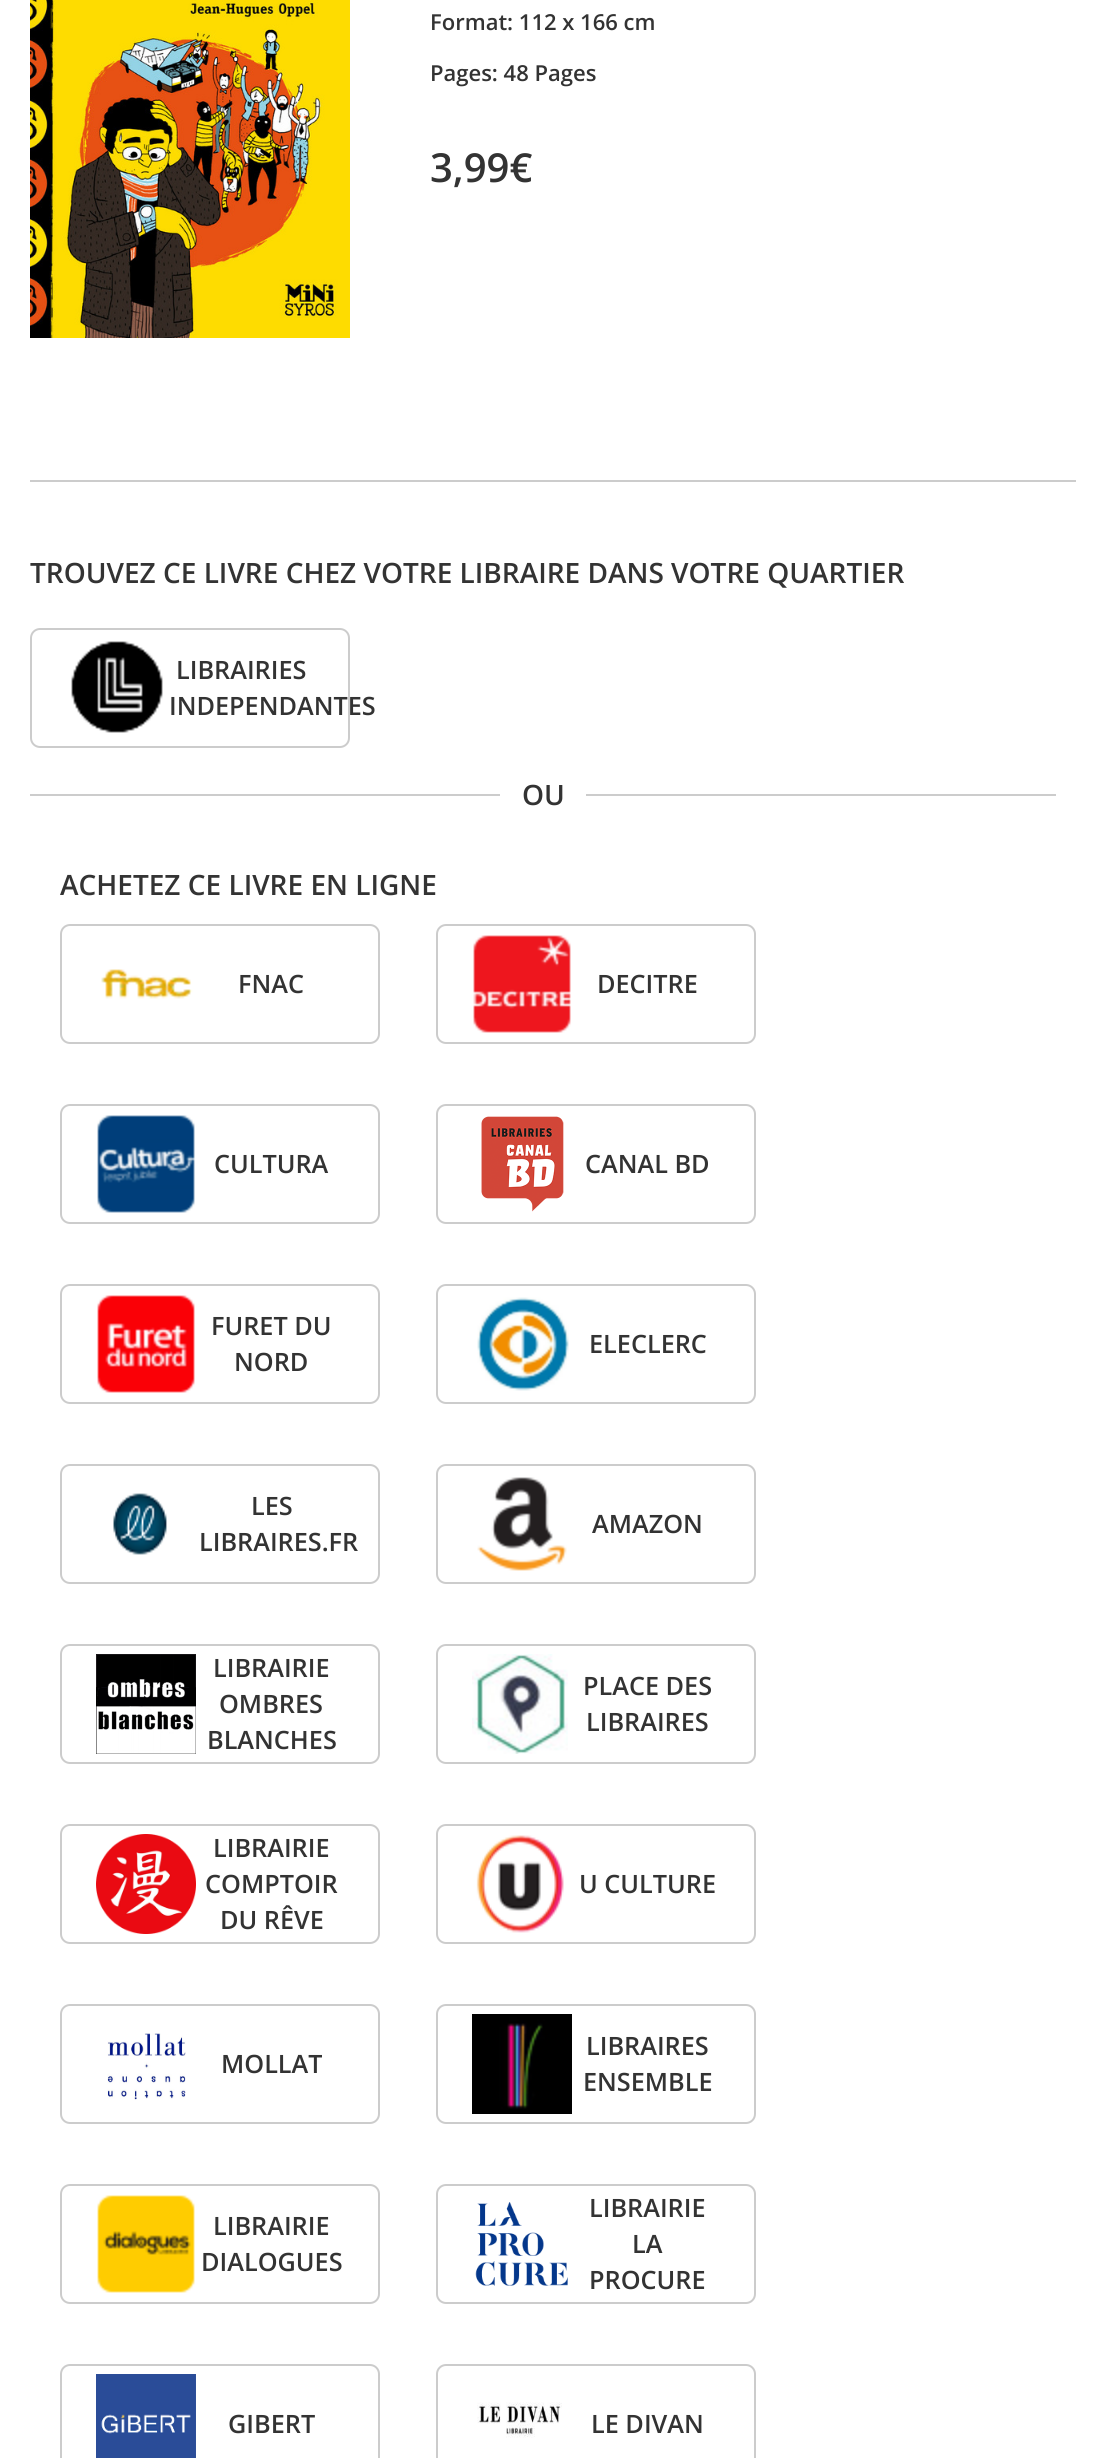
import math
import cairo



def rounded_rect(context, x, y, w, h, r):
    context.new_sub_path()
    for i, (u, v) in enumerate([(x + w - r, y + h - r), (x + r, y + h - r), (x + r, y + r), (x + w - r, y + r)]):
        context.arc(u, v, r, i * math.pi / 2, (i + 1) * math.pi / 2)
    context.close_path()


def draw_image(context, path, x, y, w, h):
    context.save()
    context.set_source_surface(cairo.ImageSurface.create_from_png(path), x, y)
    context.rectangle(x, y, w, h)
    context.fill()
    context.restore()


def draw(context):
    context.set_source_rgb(1, 1, 1)
    context.paint()
    draw_image(context, "images/1.png", 30, 0, 320, 338)
    context.set_source_rgb(204 / 255, 204 / 255, 204 / 255)
    context.rectangle(30, 480, 1046, 2)
    context.fill()
    rounded_rect(context, 31, 629, 318, 118, 9)
    context.stroke()
    draw_image(context, "images/2.png", 71, 641, 92, 92)
    context.rectangle(30, 794, 470, 2)
    context.fill()
    context.rectangle(586, 794, 470, 2)
    context.fill()
    rounded_rect(context, 61, 925, 318, 118, 9)
    context.stroke()
    draw_image(context, "images/3.png", 101, 969, 92, 30)
    rounded_rect(context, 437, 925, 318, 118, 9)
    context.stroke()
    draw_image(context, "images/4.png", 473, 935, 98, 98)
    rounded_rect(context, 61, 1105, 318, 118, 9)
    context.stroke()
    draw_image(context, "images/5.png", 97, 1115, 98, 98)
    rounded_rect(context, 437, 1105, 318, 118, 9)
    context.stroke()
    draw_image(context, "images/6.png", 481, 1116, 83, 96)
    rounded_rect(context, 61, 1285, 318, 118, 9)
    context.stroke()
    draw_image(context, "images/7.png", 97, 1295, 98, 98)
    rounded_rect(context, 437, 1285, 318, 118, 9)
    context.stroke()
    draw_image(context, "images/8.png", 477, 1297, 92, 94)
    rounded_rect(context, 61, 1465, 318, 118, 9)
    context.stroke()
    draw_image(context, "images/9.png", 113, 1493, 54, 62)
    rounded_rect(context, 437, 1465, 318, 118, 9)
    context.stroke()
    draw_image(context, "images/10.png", 477, 1477, 90, 94)
    rounded_rect(context, 61, 1645, 318, 118, 9)
    context.stroke()
    draw_image(context, "images/11.png", 96, 1654, 100, 100)
    rounded_rect(context, 437, 1645, 318, 118, 9)
    context.stroke()
    draw_image(context, "images/12.png", 472, 1654, 96, 100)
    rounded_rect(context, 61, 1825, 318, 118, 9)
    context.stroke()
    draw_image(context, "images/13.png", 96, 1834, 100, 100)
    rounded_rect(context, 437, 1825, 318, 118, 9)
    context.stroke()
    draw_image(context, "images/14.png", 476, 1835, 88, 98)
    rounded_rect(context, 61, 2005, 318, 118, 9)
    context.stroke()
    draw_image(context, "images/15.png", 107, 2033, 79, 67)
    rounded_rect(context, 437, 2005, 318, 118, 9)
    context.stroke()
    draw_image(context, "images/16.png", 472, 2014, 100, 100)
    rounded_rect(context, 61, 2185, 318, 118, 9)
    context.stroke()
    draw_image(context, "images/17.png", 97, 2195, 98, 98)
    rounded_rect(context, 437, 2185, 318, 118, 9)
    context.stroke()
    draw_image(context, "images/18.png", 475, 2202, 93, 84)
    rounded_rect(context, 61, 2365, 318, 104, 9)
    context.stroke()
    draw_image(context, "images/19.png", 96, 2374, 100, 84)
    rounded_rect(context, 437, 2365, 318, 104, 9)
    context.stroke()
    draw_image(context, "images/20.png", 477, 2402, 85, 36)
    context.select_font_face("Open Sans SemiBold")
    context.set_font_size(22)
    context.set_source_rgb(51 / 255, 51 / 255, 51 / 255)
    context.move_to(430, 30)
    context.show_text("Format: 112 x 166 cm")
    context.move_to(430, 81)
    context.show_text("Pages: 48 Pages")
    context.set_font_size(40)
    context.move_to(430, 182)
    context.show_text("3,99€")
    context.set_font_size(28)
    context.move_to(30, 583)
    context.show_text("TROUVEZ CE LIVRE CHEZ VOTRE LIBRAIRE DANS VOTRE QUARTIER")
    context.set_font_size(25.25)
    context.move_to(176, 679)
    context.show_text("LIBRAIRIES")
    context.move_to(169, 715)
    context.show_text("INDEPENDANTES")
    context.set_font_size(28)
    context.move_to(522, 805)
    context.show_text("OU")
    context.move_to(60, 895)
    context.show_text("ACHETEZ CE LIVRE EN LIGNE")
    context.set_font_size(25.25)
    context.move_to(238, 993)
    context.show_text("FNAC")
    context.move_to(597, 993)
    context.show_text("DECITRE")
    context.move_to(214, 1173)
    context.show_text("CULTURA")
    context.move_to(585, 1173)
    context.show_text("CANAL BD")
    context.move_to(211, 1335)
    context.show_text("FURET DU")
    context.move_to(234, 1371)
    context.show_text("NORD")
    context.move_to(589, 1353)
    context.show_text("ELECLERC")
    context.move_to(251, 1515)
    context.show_text("LES")
    context.move_to(199, 1551)
    context.show_text("LIBRAIRES.FR")
    context.move_to(592, 1533)
    context.show_text("AMAZON")
    context.move_to(213, 1677)
    context.show_text("LIBRAIRIE")
    context.move_to(219, 1713)
    context.show_text("OMBRES")
    context.move_to(207, 1749)
    context.show_text("BLANCHES")
    context.move_to(583, 1695)
    context.show_text("PLACE DES")
    context.move_to(586, 1731)
    context.show_text("LIBRAIRES")
    context.move_to(213, 1857)
    context.show_text("LIBRAIRIE")
    context.move_to(205, 1893)
    context.show_text("COMPTOIR")
    context.move_to(220, 1929)
    context.show_text("DU RÊVE")
    context.move_to(579, 1893)
    context.show_text("U CULTURE")
    context.move_to(221, 2073)
    context.show_text("MOLLAT")
    context.move_to(586, 2055)
    context.show_text("LIBRAIRES")
    context.move_to(583, 2091)
    context.show_text("ENSEMBLE")
    context.move_to(213, 2235)
    context.show_text("LIBRAIRIE")
    context.move_to(201, 2271)
    context.show_text("DIALOGUES")
    context.move_to(589, 2217)
    context.show_text("LIBRAIRIE")
    context.move_to(632, 2253)
    context.show_text("LA")
    context.move_to(589, 2289)
    context.show_text("PROCURE")
    context.move_to(228, 2433)
    context.show_text("GIBERT")
    context.move_to(591, 2433)
    context.show_text("LE DIVAN")


surface = cairo.ImageSurface(cairo.Format.RGB24, 1106, 2458)
context = cairo.Context(surface)
options = cairo.FontOptions()
options.set_hint_metrics(cairo.HintMetrics.OFF)
options.set_hint_style(cairo.HintStyle.NONE)
context.set_font_options(options)
context.set_miter_limit(4)
draw(context)
surface.write_to_png("out.png")
